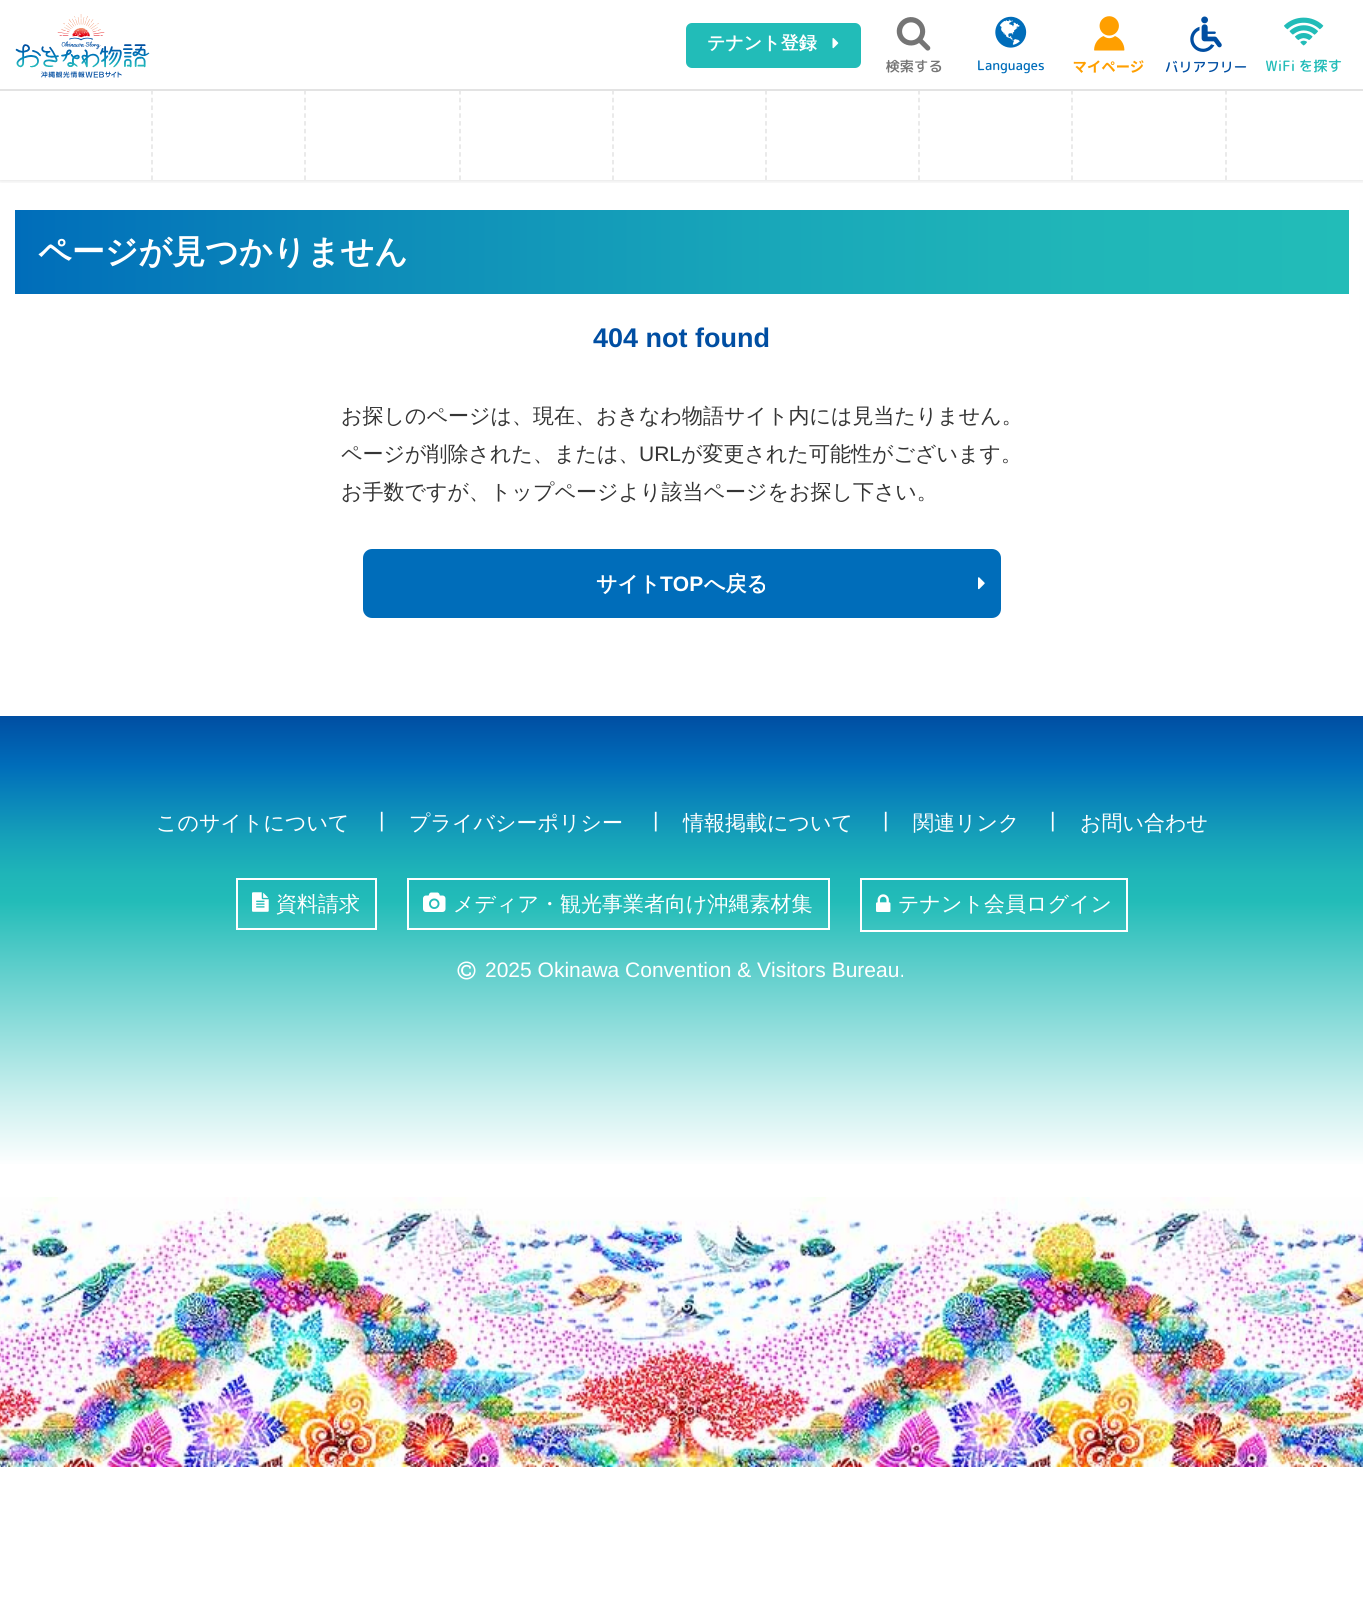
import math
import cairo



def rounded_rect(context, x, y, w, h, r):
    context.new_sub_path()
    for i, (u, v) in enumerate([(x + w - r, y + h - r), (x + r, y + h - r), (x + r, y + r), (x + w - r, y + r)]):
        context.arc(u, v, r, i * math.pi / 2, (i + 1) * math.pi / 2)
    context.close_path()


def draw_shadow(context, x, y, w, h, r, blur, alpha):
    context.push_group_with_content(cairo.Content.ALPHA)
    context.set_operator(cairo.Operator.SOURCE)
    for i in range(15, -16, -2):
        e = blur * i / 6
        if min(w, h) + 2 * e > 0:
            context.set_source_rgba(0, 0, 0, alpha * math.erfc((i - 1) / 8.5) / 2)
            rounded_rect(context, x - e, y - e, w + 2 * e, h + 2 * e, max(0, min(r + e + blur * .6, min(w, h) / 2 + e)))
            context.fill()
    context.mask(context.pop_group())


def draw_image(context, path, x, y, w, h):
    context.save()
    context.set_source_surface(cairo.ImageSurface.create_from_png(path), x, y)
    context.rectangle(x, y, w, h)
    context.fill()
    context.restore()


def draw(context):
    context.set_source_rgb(1, 1, 1)
    context.paint()
    context.save()
    context.rectangle(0, 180, 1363, 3)
    context.clip()
    context.set_source_rgb(0, 0, 0)
    draw_shadow(context, 0, 0, 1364, 180, 0, 3, 0.15)
    context.restore()
    context.new_path()
    context.move_to(152, 90)
    context.line_to(152, 180)
    context.set_source_rgb(227 / 255, 227 / 255, 227 / 255)
    context.set_line_width(1.5)
    context.set_dash([4.5, 3.27])
    context.stroke()
    context.new_path()
    context.move_to(305, 90)
    context.line_to(305, 180)
    context.stroke()
    context.new_path()
    context.move_to(460, 90)
    context.line_to(460, 180)
    context.stroke()
    context.new_path()
    context.move_to(613, 90)
    context.line_to(613, 180)
    context.stroke()
    context.new_path()
    context.move_to(766, 90)
    context.line_to(766, 180)
    context.stroke()
    context.new_path()
    context.move_to(919, 90)
    context.line_to(919, 180)
    context.stroke()
    context.new_path()
    context.move_to(1072, 90)
    context.line_to(1072, 180)
    context.stroke()
    context.new_path()
    context.move_to(1226, 90)
    context.line_to(1226, 180)
    context.stroke()
    context.rectangle(0, 89, 1363, 2)
    context.fill()
    draw_image(context, "images/1.png", 15, 14, 135, 64)
    context.set_source_rgb(34 / 255, 188 / 255, 184 / 255)
    rounded_rect(context, 686, 23, 175, 45, 6)
    context.fill()
    draw_image(context, "images/2.png", 832, 38, 7, 11)
    draw_image(context, "images/3.png", 886, 17, 56, 56)
    draw_image(context, "images/4.png", 978, 16, 66, 58)
    draw_image(context, "images/5.png", 1073, 16, 71, 57)
    draw_image(context, "images/6.png", 1165, 16, 82, 57)
    draw_image(context, "images/7.png", 1266, 17, 76, 56)
    gradient = cairo.LinearGradient(15, 252, 1349, 252)
    gradient.add_color_stop_rgba(0, 0, 109 / 255, 186 / 255, 1)
    gradient.add_color_stop_rgba(0.26, 13 / 255, 139 / 255, 185 / 255, 1)
    gradient.add_color_stop_rgba(0.55, 24 / 255, 166 / 255, 185 / 255, 1)
    gradient.add_color_stop_rgba(0.8, 32 / 255, 182 / 255, 184 / 255, 1)
    gradient.add_color_stop_rgba(1, 34 / 255, 188 / 255, 184 / 255, 1)
    context.set_source(gradient)
    context.rectangle(15, 210, 1334, 84)
    context.fill()
    context.set_source_rgb(0, 109 / 255, 186 / 255)
    rounded_rect(context, 363, 549, 638, 69, 9)
    context.fill()
    draw_image(context, "images/8.png", 978, 577, 7, 13)
    gradient = cairo.LinearGradient(682, 1167, 682, 716)
    gradient.add_color_stop_rgba(0, 1, 1, 1, 1)
    gradient.add_color_stop_rgba(0.14, 208 / 255, 241 / 255, 240 / 255, 1)
    gradient.add_color_stop_rgba(0.45, 90 / 255, 205 / 255, 202 / 255, 1)
    gradient.add_color_stop_rgba(0.59, 34 / 255, 188 / 255, 184 / 255, 1)
    gradient.add_color_stop_rgba(0.65, 31 / 255, 181 / 255, 184 / 255, 1)
    gradient.add_color_stop_rgba(0.73, 22 / 255, 161 / 255, 185 / 255, 1)
    gradient.add_color_stop_rgba(0.83, 8 / 255, 129 / 255, 186 / 255, 1)
    gradient.add_color_stop_rgba(0.89, 0, 109 / 255, 186 / 255, 1)
    gradient.add_color_stop_rgba(1, 0, 78 / 255, 162 / 255, 1)
    context.set_source(gradient)
    context.rectangle(0, 716, 1363, 448)
    context.fill()
    context.rectangle(237, 879, 139, 50)
    context.set_source_rgb(1, 1, 1)
    context.set_line_width(2)
    context.set_dash([])
    context.stroke()
    draw_image(context, "images/9.png", 252, 892, 17, 20)
    context.rectangle(408, 879, 421, 50)
    context.stroke()
    draw_image(context, "images/10.png", 423, 892, 23, 20)
    context.rectangle(861, 879, 266, 52)
    context.stroke()
    draw_image(context, "images/11.png", 876, 894, 15, 18)
    draw_image(context, "images/12.png", 457, 961, 19, 19)
    draw_image(context, "images/13.png", 0, 1197, 1363, 270)
    context.select_font_face("WenQuanYi Zen Hei", cairo.FontSlant.NORMAL, cairo.FontWeight.BOLD)
    context.set_font_size(18)
    context.move_to(707, 49)
    context.show_text("テナント登録")
    context.set_font_size(33)
    context.move_to(38, 263)
    context.show_text("ページが見つかりません")
    context.select_font_face("Liberation Sans", cairo.FontSlant.NORMAL, cairo.FontWeight.BOLD)
    context.set_font_size(27)
    context.set_source_rgb(0, 78 / 255, 162 / 255)
    context.move_to(593, 347)
    context.show_text("404 not found")
    context.select_font_face("WenQuanYi Zen Hei Medium")
    context.set_font_size(21)
    context.set_source_rgb(53 / 255, 53 / 255, 53 / 255)
    context.move_to(341, 423)
    context.show_text("お探しのページは、現在、おきなわ物語サイト内には見当たりません。")
    context.move_to(341, 461)
    context.show_text("ページが削除された、または、")
    context.select_font_face("Liberation Sans")
    context.move_to(639, 461)
    context.show_text("URL")
    context.select_font_face("WenQuanYi Zen Hei Medium")
    context.move_to(681, 461)
    context.show_text("が変更された可能性がございます。")
    context.move_to(341, 499)
    context.show_text("お手数ですが、トップページより該当ページをお探し下さい。")
    context.select_font_face("WenQuanYi Zen Hei", cairo.FontSlant.NORMAL, cairo.FontWeight.BOLD)
    context.set_source_rgb(1, 1, 1)
    context.move_to(596, 591)
    context.show_text("サイト")
    context.select_font_face("Liberation Sans", cairo.FontSlant.NORMAL, cairo.FontWeight.BOLD)
    context.move_to(660, 591)
    context.show_text("TOP")
    context.select_font_face("WenQuanYi Zen Hei", cairo.FontSlant.NORMAL, cairo.FontWeight.BOLD)
    context.move_to(704, 591)
    context.show_text("へ戻る")
    context.select_font_face("WenQuanYi Zen Hei Medium")
    context.move_to(156, 830)
    context.show_text("このサイトについて")
    context.select_font_face("Liberation Sans")
    context.move_to(379, 827)
    context.show_text("|")
    context.select_font_face("WenQuanYi Zen Hei Medium")
    context.move_to(409, 830)
    context.show_text("プライバシーポリシー")
    context.select_font_face("Liberation Sans")
    context.move_to(653, 827)
    context.show_text("|")
    context.select_font_face("WenQuanYi Zen Hei Medium")
    context.move_to(683, 830)
    context.show_text("情報掲載について")
    context.select_font_face("Liberation Sans")
    context.move_to(883, 827)
    context.show_text("|")
    context.select_font_face("WenQuanYi Zen Hei Medium")
    context.move_to(913, 830)
    context.show_text("関連リンク")
    context.select_font_face("Liberation Sans")
    context.move_to(1050, 827)
    context.show_text("|")
    context.select_font_face("WenQuanYi Zen Hei Medium")
    context.move_to(1080, 830)
    context.show_text("お問い合わせ")
    context.move_to(276, 911)
    context.show_text("資料請求")
    context.move_to(453, 911)
    context.show_text("メディア・観光事業者向け沖縄素材集")
    context.move_to(898, 911)
    context.show_text("テナント会員ログイン")
    context.select_font_face("Liberation Sans")
    context.move_to(485, 977)
    context.show_text("2025 Okinawa Convention & Visitors Bureau.")


surface = cairo.ImageSurface(cairo.Format.RGB24, 1363, 1621)
context = cairo.Context(surface)
options = cairo.FontOptions()
options.set_hint_metrics(cairo.HintMetrics.OFF)
options.set_hint_style(cairo.HintStyle.NONE)
context.set_font_options(options)
context.set_miter_limit(4)
draw(context)
surface.write_to_png("out.png")
